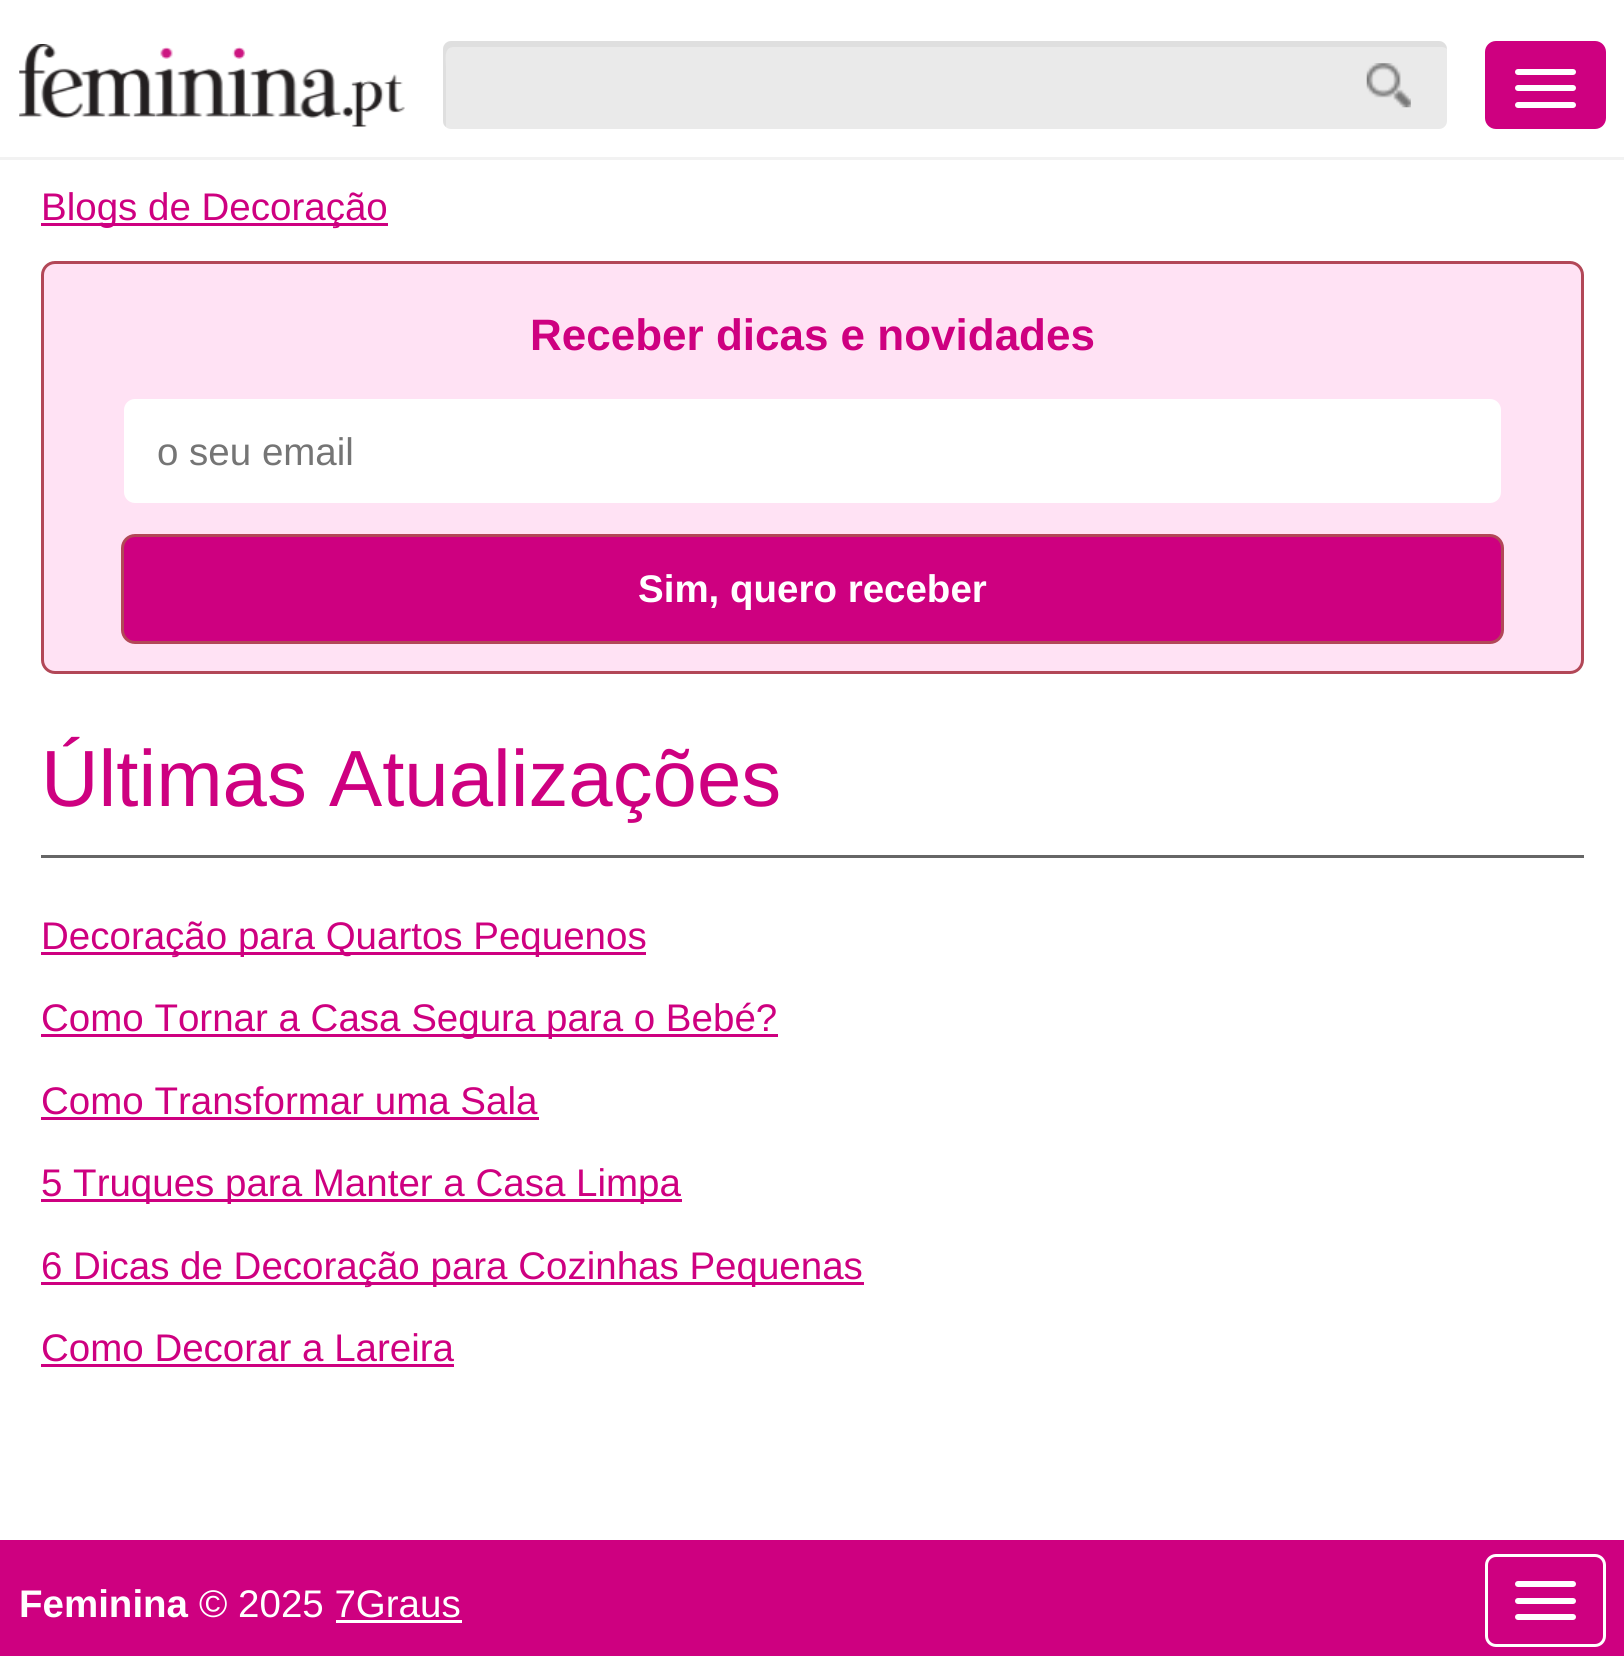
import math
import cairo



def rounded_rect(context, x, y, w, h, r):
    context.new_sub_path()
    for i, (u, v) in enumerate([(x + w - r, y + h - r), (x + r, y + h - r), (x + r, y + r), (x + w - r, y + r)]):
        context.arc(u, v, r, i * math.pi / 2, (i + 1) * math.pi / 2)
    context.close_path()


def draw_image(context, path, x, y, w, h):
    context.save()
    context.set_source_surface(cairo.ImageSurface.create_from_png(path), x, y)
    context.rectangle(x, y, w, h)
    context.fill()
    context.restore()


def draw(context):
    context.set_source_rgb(1, 1, 1)
    context.paint()
    context.set_source_rgb(242 / 255, 242 / 255, 242 / 255)
    context.rectangle(0, 157, 1624, 3)
    context.fill()
    draw_image(context, "images/1.png", 19, 44, 386, 83)
    context.set_source_rgb(234 / 255, 234 / 255, 234 / 255)
    rounded_rect(context, 443, 41, 1004, 88, 8)
    context.fill()
    context.set_source_rgba(0, 0, 0, 0.05)
    context.new_path()
    context.move_to(454, 47)
    context.line_to(1441, 47)
    context.curve_to(1444, 47, 1446, 48, 1447, 49)
    context.curve_to(1447, 45, 1443, 41, 1439, 41)
    context.line_to(451, 41)
    context.curve_to(447, 41, 443, 45, 443, 49)
    context.line_to(443, 121)
    context.curve_to(443, 124, 444, 126, 446, 127)
    context.line_to(446, 67)
    context.curve_to(446, 60, 443, 47, 454, 47)
    context.close_path()
    context.fill()
    draw_image(context, "images/2.png", 1366, 63, 45, 45)
    context.set_source_rgb(206 / 255, 0, 128 / 255)
    rounded_rect(context, 1485, 41, 121, 88, 11)
    context.fill()
    context.set_source_rgb(1, 1, 1)
    rounded_rect(context, 1515, 69, 61, 6, 3)
    context.fill()
    rounded_rect(context, 1515, 85, 61, 6, 3)
    context.fill()
    rounded_rect(context, 1515, 102, 61, 6, 3)
    context.fill()
    context.set_source_rgb(206 / 255, 0, 128 / 255)
    context.rectangle(41, 223, 347, 3)
    context.fill()
    context.set_source_rgb(1, 226 / 255, 244 / 255)
    rounded_rect(context, 42.5, 262.5, 1540, 410, 12.5)
    context.fill_preserve()
    context.set_source_rgb(178 / 255, 71 / 255, 87 / 255)
    context.set_line_width(3)
    context.stroke()
    context.set_source_rgb(1, 1, 1)
    rounded_rect(context, 122.5, 397.5, 1380, 107, 12.5)
    context.fill_preserve()
    context.set_source_rgb(1, 226 / 255, 244 / 255)
    context.stroke()
    context.set_source_rgb(206 / 255, 0, 128 / 255)
    rounded_rect(context, 122.5, 535.5, 1380, 107, 12.5)
    context.fill_preserve()
    context.set_source_rgb(178 / 255, 71 / 255, 87 / 255)
    context.stroke()
    context.set_source_rgb(102 / 255, 102 / 255, 102 / 255)
    context.rectangle(41, 855, 1543, 3)
    context.fill()
    context.set_source_rgb(206 / 255, 0, 128 / 255)
    context.rectangle(41, 952, 605, 3)
    context.fill()
    context.rectangle(41, 1034, 737, 3)
    context.fill()
    context.rectangle(41, 1117, 498, 3)
    context.fill()
    context.rectangle(41, 1199, 641, 3)
    context.fill()
    context.rectangle(41, 1282, 823, 3)
    context.fill()
    context.rectangle(41, 1364, 413, 3)
    context.fill()
    context.rectangle(0, 1540, 1624, 116)
    context.fill()
    rounded_rect(context, 1486.5, 1555.5, 118, 90, 9.5)
    context.set_source_rgb(1, 1, 1)
    context.stroke()
    rounded_rect(context, 1515, 1581, 61, 6, 3)
    context.fill()
    rounded_rect(context, 1515, 1598, 61, 6, 3)
    context.fill()
    rounded_rect(context, 1515, 1614, 61, 6, 3)
    context.fill()
    context.rectangle(336, 1620, 126, 3)
    context.fill()
    context.select_font_face("Liberation Sans")
    context.set_font_size(38.5)
    context.set_source_rgb(206 / 255, 0, 128 / 255)
    context.move_to(41, 220)
    context.show_text("Blogs de Decoração")
    context.select_font_face("Liberation Sans", cairo.FontSlant.NORMAL, cairo.FontWeight.BOLD)
    context.set_font_size(44)
    context.move_to(530, 350)
    context.show_text("Receber dicas e novidades")
    context.select_font_face("Liberation Sans")
    context.set_font_size(38.5)
    context.set_source_rgb(117 / 255, 117 / 255, 117 / 255)
    context.move_to(157, 465)
    context.show_text("o seu email")
    context.select_font_face("Liberation Sans", cairo.FontSlant.NORMAL, cairo.FontWeight.BOLD)
    context.set_source_rgb(1, 1, 1)
    context.move_to(638, 602)
    context.show_text("Sim, quero receber")
    context.select_font_face("Liberation Sans")
    context.set_font_size(79.75)
    context.set_source_rgb(206 / 255, 0, 128 / 255)
    context.move_to(41, 806)
    context.show_text("Últimas Atualizações")
    context.set_font_size(38.5)
    context.move_to(41, 949)
    context.show_text("Decoração para Quartos Pequenos")
    context.move_to(41, 1031)
    context.show_text("Como Tornar a Casa Segura para o Bebé?")
    context.move_to(41, 1114)
    context.show_text("Como Transformar uma Sala")
    context.move_to(41, 1196)
    context.show_text("5 Truques para Manter a Casa Limpa")
    context.move_to(41, 1279)
    context.show_text("6 Dicas de Decoração para Cozinhas Pequenas")
    context.move_to(41, 1361)
    context.show_text("Como Decorar a Lareira")
    context.select_font_face("Liberation Sans", cairo.FontSlant.NORMAL, cairo.FontWeight.BOLD)
    context.set_source_rgb(1, 1, 1)
    context.move_to(19, 1617)
    context.show_text("Feminina")
    context.select_font_face("Liberation Sans")
    context.move_to(199, 1617)
    context.show_text("© 2025 7Graus")


surface = cairo.ImageSurface(cairo.Format.RGB24, 1624, 1656)
context = cairo.Context(surface)
options = cairo.FontOptions()
options.set_hint_metrics(cairo.HintMetrics.OFF)
options.set_hint_style(cairo.HintStyle.NONE)
context.set_font_options(options)
context.set_miter_limit(4)
draw(context)
surface.write_to_png("out.png")
